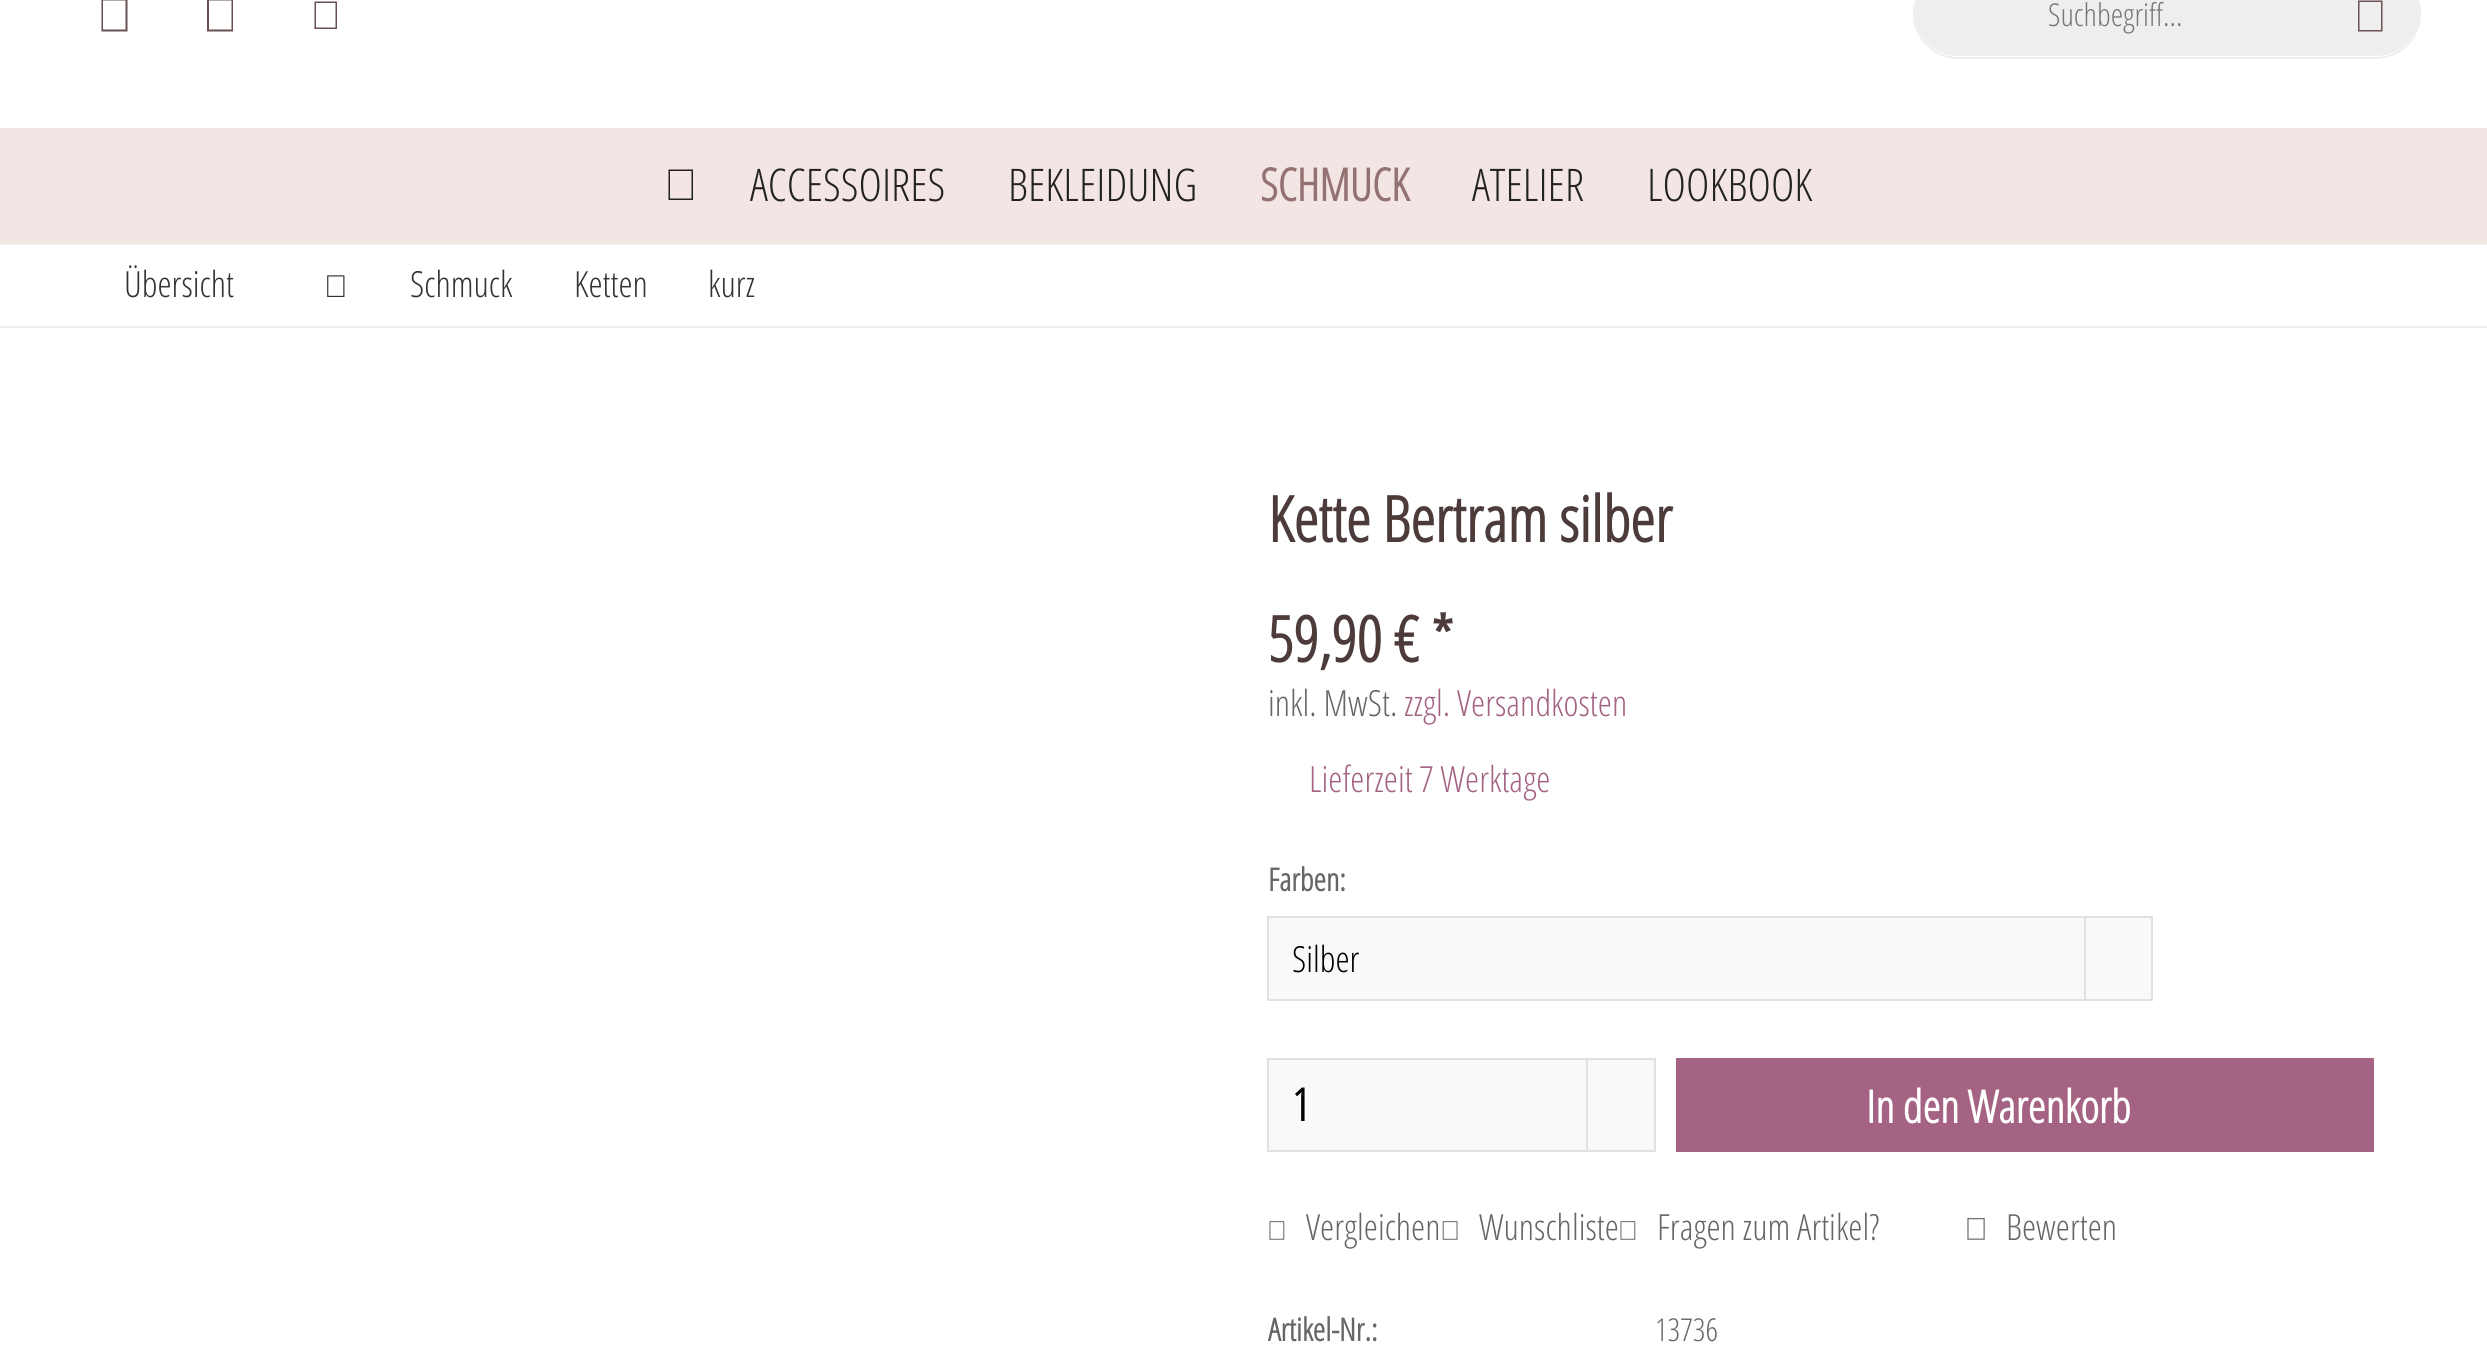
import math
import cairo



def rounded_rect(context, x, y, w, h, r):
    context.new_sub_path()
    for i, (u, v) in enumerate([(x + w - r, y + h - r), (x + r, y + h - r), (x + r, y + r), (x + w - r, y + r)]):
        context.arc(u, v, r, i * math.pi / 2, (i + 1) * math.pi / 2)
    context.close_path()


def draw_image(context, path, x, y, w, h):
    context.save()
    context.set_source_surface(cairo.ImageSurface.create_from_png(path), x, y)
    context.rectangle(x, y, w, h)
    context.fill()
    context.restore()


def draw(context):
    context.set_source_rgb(1, 1, 1)
    context.paint()
    context.set_source_rgb(238 / 255, 238 / 255, 238 / 255)
    context.rectangle(0, 243, 2487, 2)
    context.fill()
    context.set_source_rgb(106 / 255, 80 / 255, 80 / 255)
    context.new_path()
    context.move_to(101.5, -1)
    context.line_to(127.5, -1)
    context.line_to(127.5, 31.5)
    context.line_to(101.5, 31.5)
    context.close_path()
    context.move_to(103, 0.5)
    context.line_to(103, 29.5)
    context.line_to(125.5, 29.5)
    context.line_to(125.5, 0.5)
    context.close_path()
    context.fill()
    context.new_path()
    context.move_to(207, -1)
    context.line_to(233, -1)
    context.line_to(233, 31.5)
    context.line_to(207, 31.5)
    context.close_path()
    context.move_to(209, 0.5)
    context.line_to(209, 29.5)
    context.line_to(231.5, 29.5)
    context.line_to(231.5, 0.5)
    context.close_path()
    context.fill()
    context.new_path()
    context.move_to(314.5, 1.5)
    context.line_to(337, 1.5)
    context.line_to(337, 29)
    context.line_to(314.5, 29)
    context.close_path()
    context.move_to(316, 3)
    context.line_to(316, 27.5)
    context.line_to(335.5, 27.5)
    context.line_to(335.5, 3)
    context.close_path()
    context.fill()
    context.set_source_rgb(238 / 255, 238 / 255, 238 / 255)
    rounded_rect(context, 1915, -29, 504, 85, 42.5)
    context.fill()
    rounded_rect(context, 1914, -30, 506, 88, 44)
    context.stroke()
    context.set_source_rgb(106 / 255, 80 / 255, 80 / 255)
    context.new_path()
    context.move_to(2358, 0.5)
    context.line_to(2382.5, 0.5)
    context.line_to(2382.5, 31.5)
    context.line_to(2358, 31.5)
    context.close_path()
    context.move_to(2359.5, 2)
    context.line_to(2359.5, 30)
    context.line_to(2381, 30)
    context.line_to(2381, 2)
    context.close_path()
    context.fill()
    context.set_source_rgb(244 / 255, 229 / 255, 229 / 255)
    context.rectangle(0, 128, 2487, 115)
    context.fill()
    context.set_source_rgb(34 / 255, 34 / 255, 34 / 255)
    context.new_path()
    context.move_to(668.5, 169.5)
    context.line_to(693, 169.5)
    context.line_to(693, 200)
    context.line_to(668.5, 200)
    context.close_path()
    context.move_to(670, 171)
    context.line_to(670, 198.5)
    context.line_to(691.5, 198.5)
    context.line_to(691.5, 171)
    context.close_path()
    context.fill()
    context.set_source_rgb(238 / 255, 238 / 255, 238 / 255)
    context.rectangle(0, 326, 2487, 2)
    context.fill()
    draw_image(context, "images/1.png", 327, 275, 18, 22)
    context.set_source_rgb(249 / 255, 249 / 255, 249 / 255)
    context.rectangle(1268, 917, 884, 83)
    context.fill_preserve()
    context.set_source_rgb(225 / 255, 225 / 255, 225 / 255)
    context.stroke()
    context.rectangle(2084, 918, 2, 81)
    context.fill()
    context.set_source_rgb(249 / 255, 249 / 255, 249 / 255)
    context.rectangle(1268, 1059, 387, 92)
    context.fill_preserve()
    context.set_source_rgb(225 / 255, 225 / 255, 225 / 255)
    context.stroke()
    context.rectangle(1586, 1060, 2, 90)
    context.fill()
    context.set_source_rgb(165 / 255, 99 / 255, 132 / 255)
    context.rectangle(1676, 1058, 698, 94)
    context.fill()
    draw_image(context, "images/2.png", 1269, 1221, 16, 19)
    draw_image(context, "images/3.png", 1442, 1221, 16, 19)
    draw_image(context, "images/2.png", 1620, 1221, 16, 19)
    draw_image(context, "images/4.png", 1967, 1218, 18, 22)
    context.select_font_face("Open Sans Condensed Light")
    context.set_font_size(31.5)
    context.set_source_rgb(119 / 255, 119 / 255, 119 / 255)
    context.move_to(2048, 26)
    context.show_text("Suchbegriff...")
    context.set_font_size(45)
    context.set_source_rgb(34 / 255, 34 / 255, 34 / 255)
    context.move_to(750, 201)
    context.show_text("ACCESSOIRES")
    context.move_to(1008, 201)
    context.show_text("BEKLEIDUNG")
    context.select_font_face("Open Sans Condensed", cairo.FontSlant.NORMAL, cairo.FontWeight.BOLD)
    context.set_source_rgb(149 / 255, 114 / 255, 114 / 255)
    context.move_to(1260, 201)
    context.show_text("SCHMUCK")
    context.select_font_face("Open Sans Condensed Light")
    context.set_source_rgb(34 / 255, 34 / 255, 34 / 255)
    context.move_to(1472, 201)
    context.show_text("ATELIER")
    context.move_to(1647, 201)
    context.show_text("LOOKBOOK")
    context.set_font_size(36)
    context.set_source_rgb(51 / 255, 51 / 255, 51 / 255)
    context.move_to(124, 297)
    context.show_text("Übersicht")
    context.move_to(410, 297)
    context.show_text("Schmuck")
    context.move_to(574, 297)
    context.show_text("Ketten")
    context.move_to(708, 297)
    context.show_text("kurz")
    context.select_font_face("Open Sans Condensed", cairo.FontSlant.NORMAL, cairo.FontWeight.BOLD)
    context.set_font_size(63)
    context.set_source_rgb(77 / 255, 58 / 255, 58 / 255)
    context.move_to(1268, 542)
    context.show_text("Kette Bertram silber")
    context.move_to(1268, 662)
    context.show_text("59,90 € *")
    context.select_font_face("Open Sans Condensed Light")
    context.set_font_size(36)
    context.set_source_rgb(102 / 255, 102 / 255, 102 / 255)
    context.move_to(1268, 716)
    context.show_text("inkl. MwSt.")
    context.set_source_rgb(165 / 255, 99 / 255, 132 / 255)
    context.move_to(1404, 716)
    context.show_text("zzgl. Versandkosten")
    context.move_to(1309, 792)
    context.show_text("Lieferzeit 7 Werktage")
    context.select_font_face("Open Sans Condensed", cairo.FontSlant.NORMAL, cairo.FontWeight.BOLD)
    context.set_font_size(31.5)
    context.set_source_rgb(102 / 255, 102 / 255, 102 / 255)
    context.move_to(1268, 891)
    context.show_text("Farben:")
    context.select_font_face("Open Sans Condensed Light")
    context.set_font_size(36)
    context.set_source_rgb(0, 0, 0)
    context.move_to(1292, 972)
    context.show_text("Silber")
    context.select_font_face("Open Sans Condensed", cairo.FontSlant.NORMAL, cairo.FontWeight.BOLD)
    context.set_font_size(45)
    context.move_to(1292, 1121)
    context.show_text("1")
    context.set_source_rgb(1, 1, 1)
    context.move_to(1866, 1123)
    context.show_text("In den Warenkorb")
    context.select_font_face("Open Sans Condensed Light")
    context.set_font_size(36)
    context.set_source_rgb(102 / 255, 102 / 255, 102 / 255)
    context.move_to(1306, 1240)
    context.show_text("Vergleichen")
    context.move_to(1479, 1240)
    context.show_text("Wunschliste")
    context.move_to(1657, 1240)
    context.show_text("Fragen zum Artikel?")
    context.move_to(2006, 1240)
    context.show_text("Bewerten")
    context.select_font_face("Open Sans Condensed", cairo.FontSlant.NORMAL, cairo.FontWeight.BOLD)
    context.set_font_size(31.5)
    context.move_to(1268, 1341)
    context.show_text("Artikel-Nr.:")
    context.select_font_face("Open Sans Condensed Light")
    context.move_to(1655, 1341)
    context.show_text("13736")


surface = cairo.ImageSurface(cairo.Format.RGB24, 2487, 1370)
context = cairo.Context(surface)
options = cairo.FontOptions()
options.set_hint_metrics(cairo.HintMetrics.OFF)
options.set_hint_style(cairo.HintStyle.NONE)
context.set_font_options(options)
context.set_miter_limit(4)
draw(context)
surface.write_to_png("out.png")
